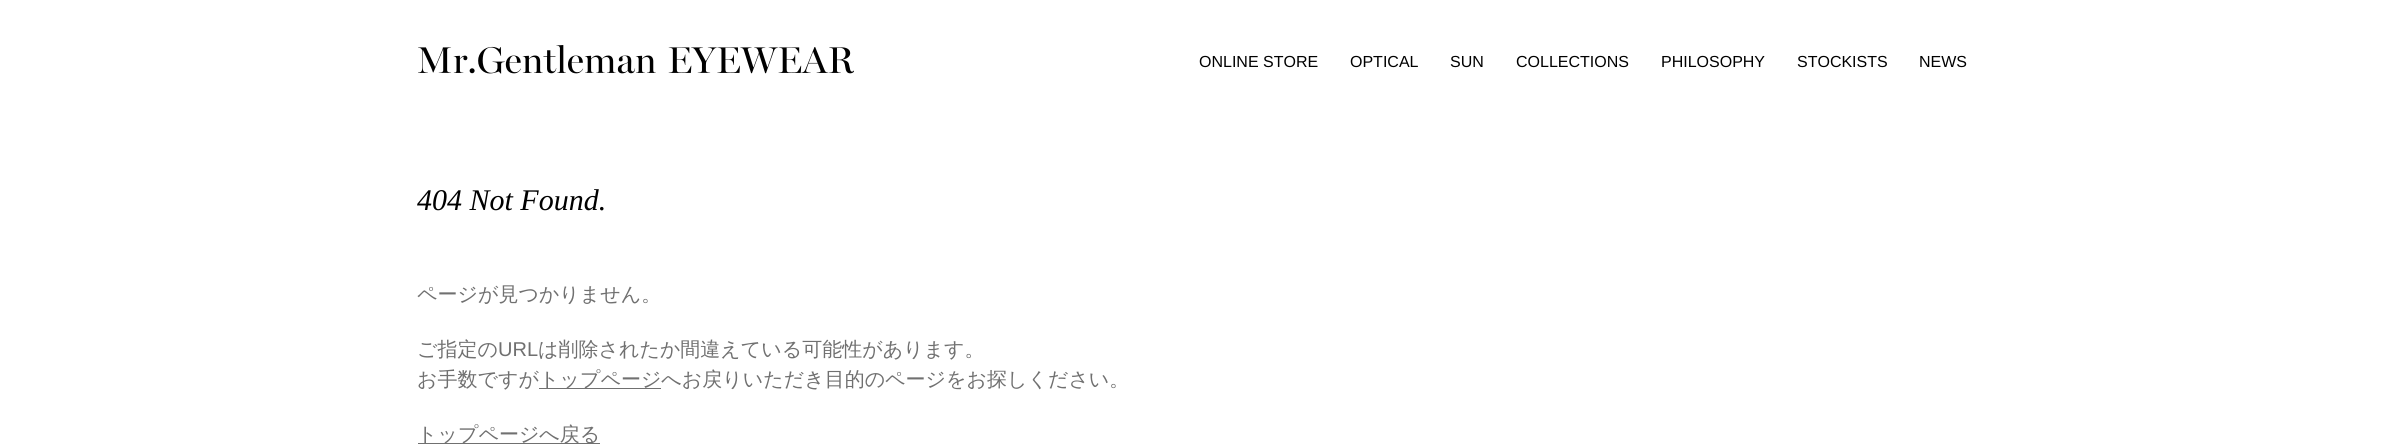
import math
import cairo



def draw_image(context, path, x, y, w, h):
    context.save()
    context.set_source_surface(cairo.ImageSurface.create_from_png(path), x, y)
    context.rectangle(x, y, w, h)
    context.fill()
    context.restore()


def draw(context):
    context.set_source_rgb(1, 1, 1)
    context.paint()
    draw_image(context, "images/1.png", 418, 45, 436, 29)
    context.set_source_rgb(112 / 255, 112 / 255, 112 / 255)
    context.rectangle(539, 388, 122, 1)
    context.fill()
    context.rectangle(418, 443, 182, 1)
    context.fill()
    context.select_font_face("Liberation Sans")
    context.set_font_size(16)
    context.set_source_rgb(0, 0, 0)
    context.move_to(1199, 67)
    context.show_text("ONLINE STORE")
    context.move_to(1350, 67)
    context.show_text("OPTICAL")
    context.move_to(1450, 67)
    context.show_text("SUN")
    context.move_to(1516, 67)
    context.show_text("COLLECTIONS")
    context.move_to(1661, 67)
    context.show_text("PHILOSOPHY")
    context.move_to(1797, 67)
    context.show_text("STOCKISTS")
    context.move_to(1919, 67)
    context.show_text("NEWS")
    context.select_font_face("Liberation Serif", cairo.FontSlant.ITALIC)
    context.set_font_size(30)
    context.move_to(417, 210)
    context.show_text("404 Not Found.")
    context.select_font_face("WenQuanYi Zen Hei Medium")
    context.set_font_size(20)
    context.set_source_rgb(112 / 255, 112 / 255, 112 / 255)
    context.move_to(417, 301)
    context.show_text("ページが見つかりません。")
    context.move_to(417, 356)
    context.show_text("ご指定の")
    context.select_font_face("Liberation Sans")
    context.move_to(498, 356)
    context.show_text("URL")
    context.select_font_face("WenQuanYi Zen Hei Medium")
    context.move_to(538, 356)
    context.show_text("は削除されたか間違えている可能性があります。")
    context.move_to(417, 386)
    context.show_text("お手数ですが")
    context.move_to(539, 386)
    context.show_text("トップページへお戻りいただき目的のページをお探しください。")
    context.move_to(417, 441)
    context.show_text("トップページへ戻る")


surface = cairo.ImageSurface(cairo.Format.RGB24, 2383, 448)
context = cairo.Context(surface)
options = cairo.FontOptions()
options.set_hint_metrics(cairo.HintMetrics.OFF)
options.set_hint_style(cairo.HintStyle.NONE)
context.set_font_options(options)
context.set_miter_limit(4)
draw(context)
surface.write_to_png("out.png")
